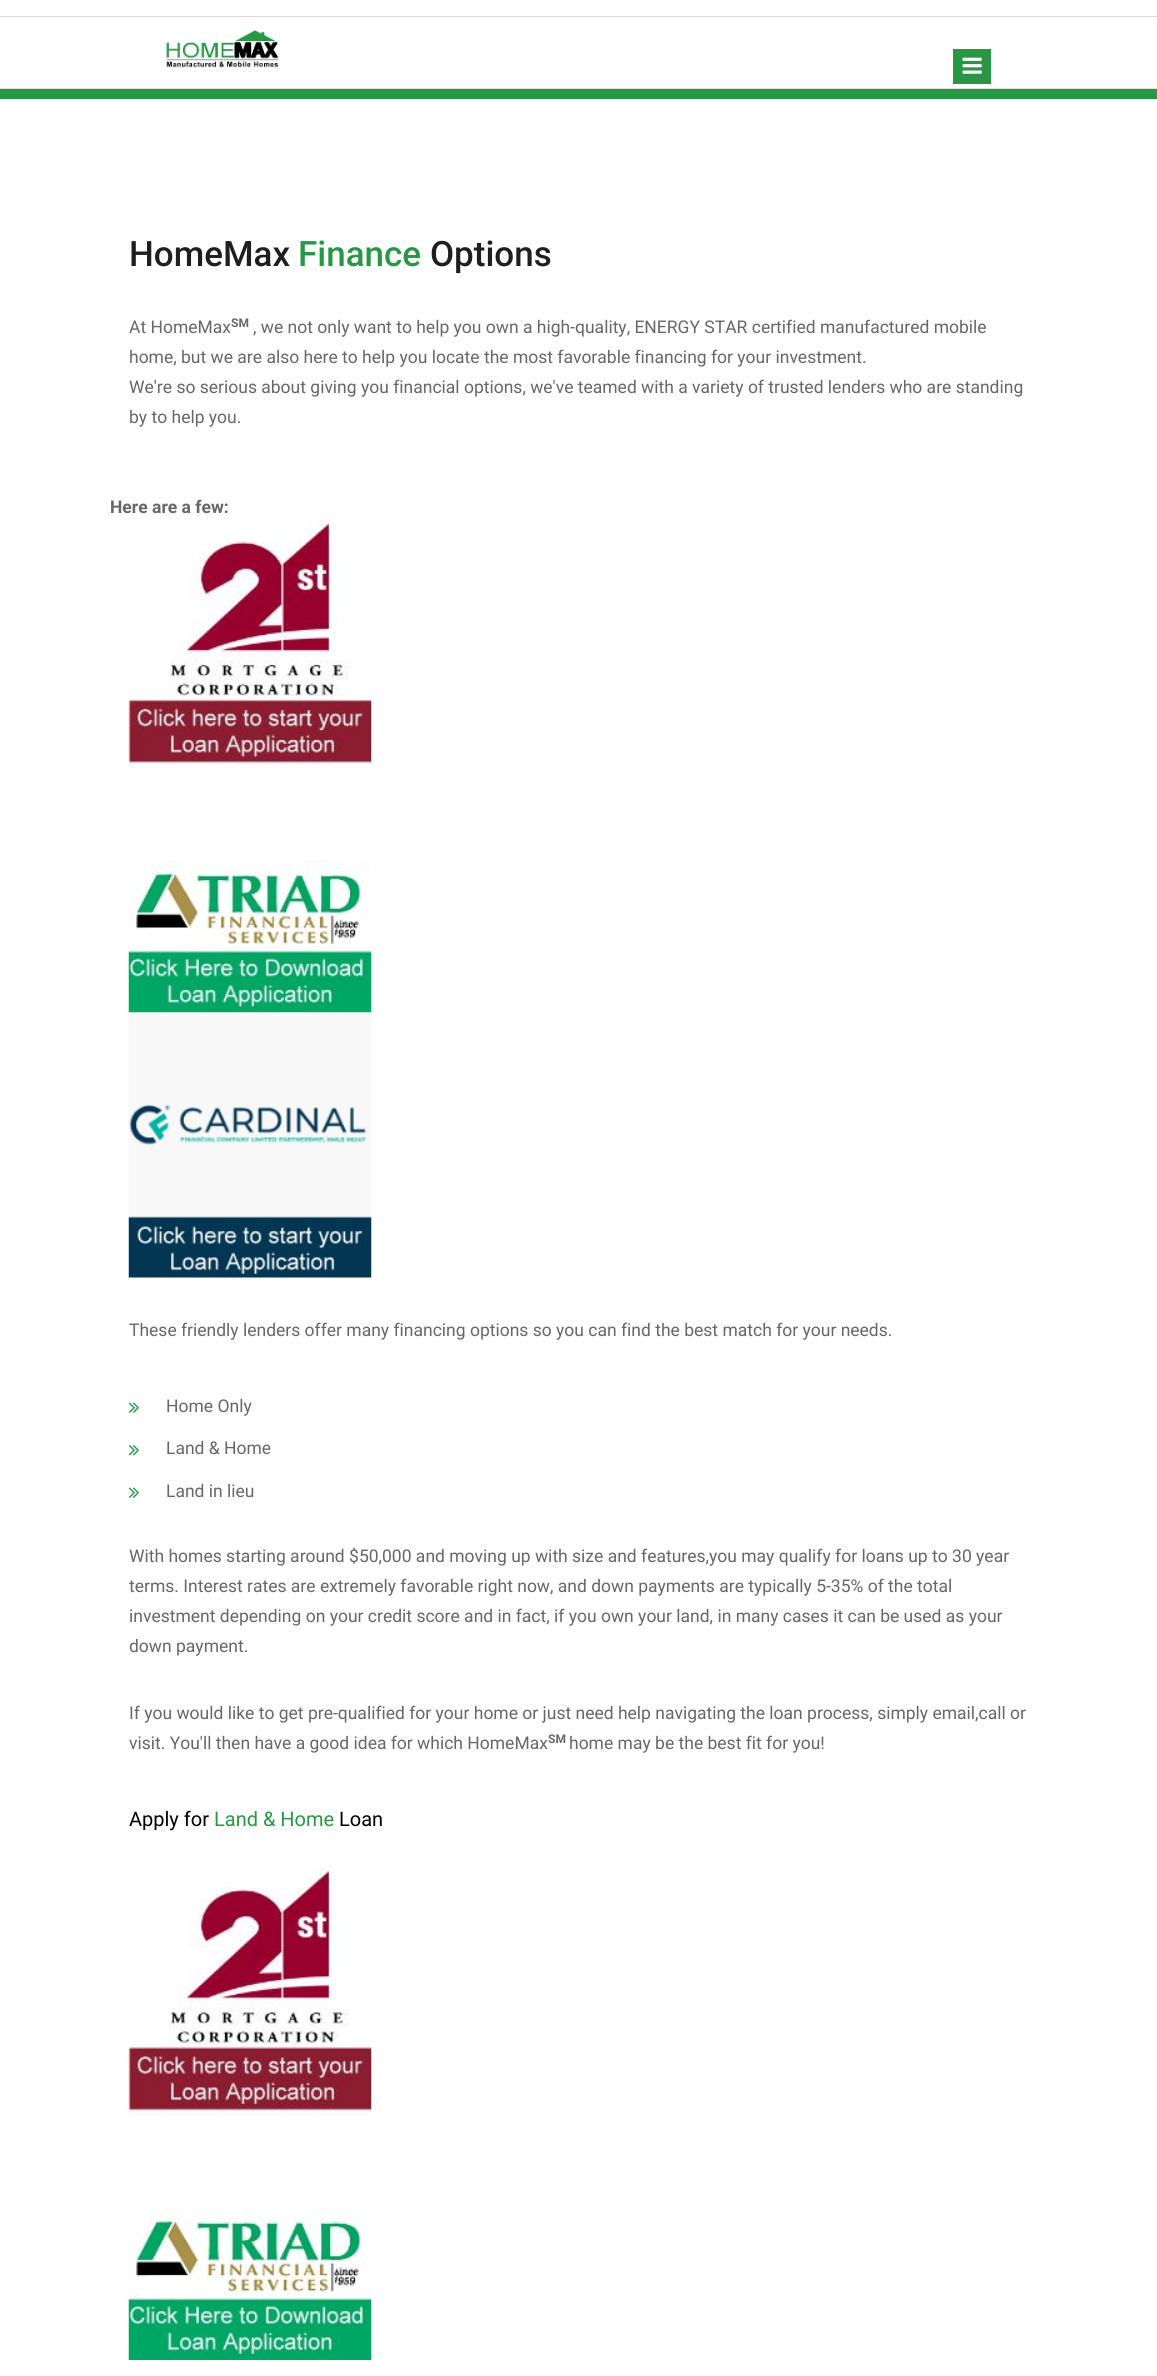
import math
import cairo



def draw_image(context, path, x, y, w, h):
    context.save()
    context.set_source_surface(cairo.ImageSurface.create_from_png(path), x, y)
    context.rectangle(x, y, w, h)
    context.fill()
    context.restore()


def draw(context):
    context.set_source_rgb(1, 1, 1)
    context.paint()
    context.set_source_rgb(219 / 255, 219 / 255, 219 / 255)
    context.rectangle(0, 16, 1157, 1)
    context.fill()
    context.set_source_rgb(224 / 255, 224 / 255, 224 / 255)
    context.rectangle(0, 88, 1157, 1)
    context.fill()
    draw_image(context, "images/1.png", 166, 30, 112, 38)
    context.set_source_rgb(41 / 255, 150 / 255, 70 / 255)
    context.rectangle(953, 49, 38, 35)
    context.fill()
    draw_image(context, "images/2.png", 962, 57, 20, 17)
    context.rectangle(0, 89, 1157, 10)
    context.fill()
    draw_image(context, "images/3.png", 128, 520, 244, 250)
    draw_image(context, "images/4.png", 128, 860, 244, 153)
    draw_image(context, "images/5.png", 128, 1012, 244, 266)
    draw_image(context, "images/6.png", 128, 1402, 11, 11)
    draw_image(context, "images/7.png", 128, 1445, 11, 11)
    draw_image(context, "images/6.png", 128, 1487, 11, 11)
    draw_image(context, "images/8.png", 128, 1867, 244, 250)
    draw_image(context, "images/9.png", 128, 2207, 244, 153)
    context.select_font_face("Roboto Medium")
    context.set_font_size(35)
    context.set_source_rgb(31 / 255, 31 / 255, 31 / 255)
    context.move_to(129, 266)
    context.show_text("HomeMax")
    context.set_source_rgb(41 / 255, 150 / 255, 70 / 255)
    context.move_to(298, 266)
    context.show_text("Finance")
    context.set_source_rgb(31 / 255, 31 / 255, 31 / 255)
    context.move_to(430, 266)
    context.show_text("Options")
    context.select_font_face("Roboto")
    context.set_font_size(17.5)
    context.set_source_rgb(103 / 255, 103 / 255, 103 / 255)
    context.move_to(129, 333)
    context.show_text("At HomeMax")
    context.select_font_face("Roboto", cairo.FontSlant.NORMAL, cairo.FontWeight.BOLD)
    context.set_font_size(12)
    context.move_to(231, 327)
    context.show_text("SM")
    context.select_font_face("Roboto")
    context.set_font_size(17.5)
    context.move_to(253, 333)
    context.show_text(", we not only want to help you own a high-quality, ENERGY STAR certified manufactured mobile")
    context.move_to(129, 363)
    context.show_text("home, but we are also here to help you locate the most favorable financing for your investment.")
    context.move_to(129, 393)
    context.show_text("We're so serious about giving you financial options, we've teamed with a variety of trusted lenders who are standing")
    context.move_to(129, 423)
    context.show_text("by to help you.")
    context.select_font_face("Roboto", cairo.FontSlant.NORMAL, cairo.FontWeight.BOLD)
    context.move_to(110, 513)
    context.show_text("Here are a few:")
    context.select_font_face("Roboto")
    context.move_to(129, 1336)
    context.show_text("These friendly lenders offer many financing options so you can find the best match for your needs.")
    context.move_to(166, 1412)
    context.show_text("Home Only")
    context.move_to(166, 1454)
    context.show_text("Land & Home")
    context.move_to(166, 1497)
    context.show_text("Land in lieu")
    context.move_to(129, 1562)
    context.show_text("With homes starting around $50,000 and moving up with size and features,you may qualify for loans up to 30 year")
    context.move_to(129, 1592)
    context.show_text("terms. Interest rates are extremely favorable right now, and down payments are typically 5-35% of the total")
    context.move_to(129, 1622)
    context.show_text("investment depending on your credit score and in fact, if you own your land, in many cases it can be used as your")
    context.move_to(129, 1652)
    context.show_text("down payment.")
    context.move_to(129, 1719)
    context.show_text("If you would like to get pre-qualified for your home or just need help navigating the loan process, simply email,call or")
    context.move_to(129, 1749)
    context.show_text("visit. You'll then have a good idea for which HomeMax")
    context.select_font_face("Roboto", cairo.FontSlant.NORMAL, cairo.FontWeight.BOLD)
    context.set_font_size(12)
    context.move_to(548, 1743)
    context.show_text("SM")
    context.select_font_face("Roboto")
    context.set_font_size(17.5)
    context.move_to(569, 1749)
    context.show_text("home may be the best fit for you!")
    context.set_font_size(20)
    context.set_source_rgb(0, 0, 0)
    context.move_to(129, 1826)
    context.show_text("Apply for")
    context.set_source_rgb(41 / 255, 150 / 255, 70 / 255)
    context.move_to(214, 1826)
    context.show_text("Land & Home")
    context.set_source_rgb(0, 0, 0)
    context.move_to(339, 1826)
    context.show_text("Loan")


surface = cairo.ImageSurface(cairo.Format.RGB24, 1157, 2376)
context = cairo.Context(surface)
options = cairo.FontOptions()
options.set_hint_metrics(cairo.HintMetrics.OFF)
options.set_hint_style(cairo.HintStyle.NONE)
context.set_font_options(options)
context.set_miter_limit(4)
draw(context)
surface.write_to_png("out.png")
